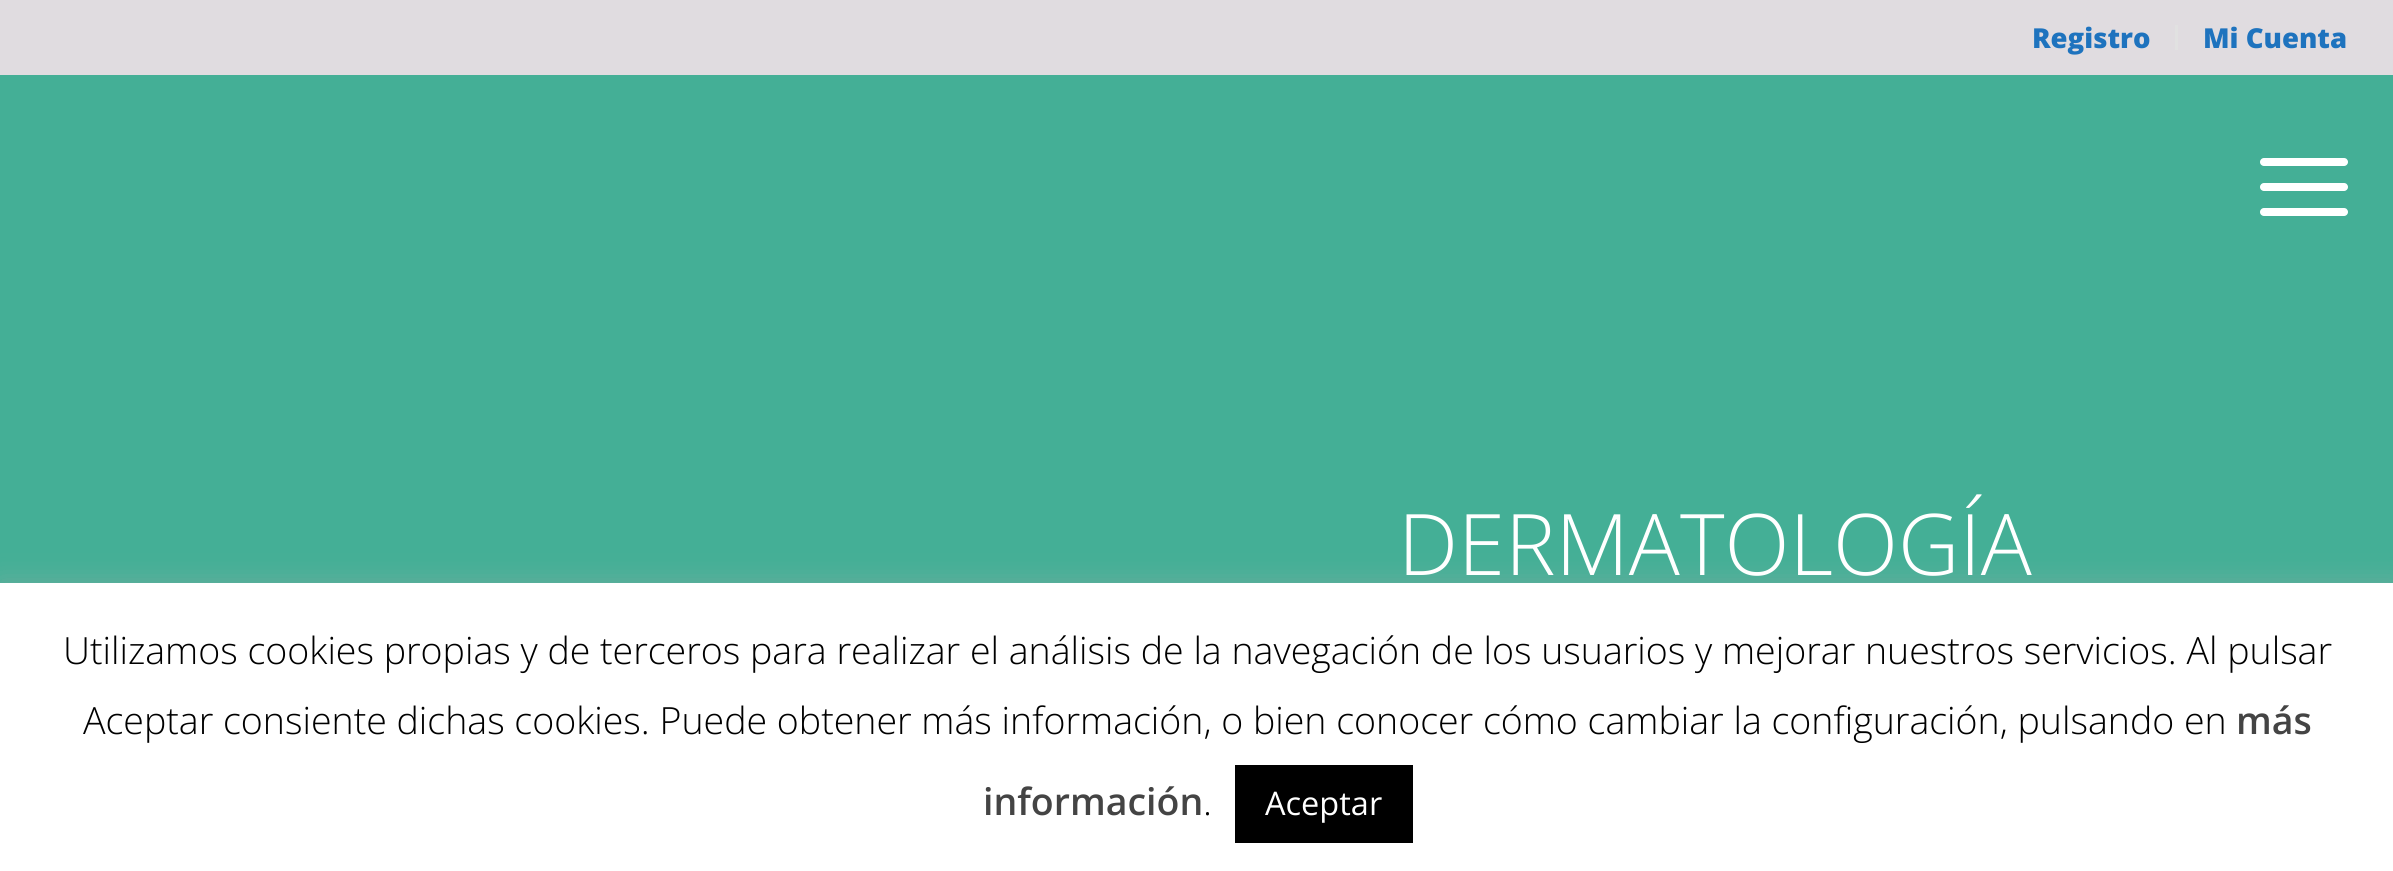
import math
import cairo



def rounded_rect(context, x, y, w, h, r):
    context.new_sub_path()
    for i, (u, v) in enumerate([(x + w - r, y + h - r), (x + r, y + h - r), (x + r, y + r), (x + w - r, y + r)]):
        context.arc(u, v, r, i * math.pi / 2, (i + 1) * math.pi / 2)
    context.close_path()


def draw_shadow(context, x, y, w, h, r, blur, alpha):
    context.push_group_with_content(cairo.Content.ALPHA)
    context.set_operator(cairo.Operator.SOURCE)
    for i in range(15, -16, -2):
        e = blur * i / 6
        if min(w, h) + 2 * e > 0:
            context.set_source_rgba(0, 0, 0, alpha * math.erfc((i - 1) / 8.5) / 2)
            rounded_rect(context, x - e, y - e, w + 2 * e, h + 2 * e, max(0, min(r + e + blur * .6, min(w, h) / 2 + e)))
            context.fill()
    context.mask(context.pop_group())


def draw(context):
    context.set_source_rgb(68 / 255, 175 / 255, 150 / 255)
    context.paint()
    context.set_source_rgb(224 / 255, 220 / 255, 224 / 255)
    context.rectangle(0, 0, 2393, 75)
    context.fill()
    context.set_source_rgb(225 / 255, 225 / 255, 225 / 255)
    context.rectangle(2175, 25, 3, 25)
    context.fill()
    context.set_source_rgb(1, 1, 1)
    rounded_rect(context, 2260, 183, 88, 8, 4)
    context.fill()
    rounded_rect(context, 2260, 158, 88, 8, 4)
    context.fill()
    rounded_rect(context, 2260, 208, 88, 8, 4)
    context.fill()
    context.set_source_rgb(172 / 255, 171 / 255, 171 / 255)
    draw_shadow(context, 0, 580, 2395, 290, 0, 12.5, 0.3)
    context.set_source_rgb(1, 1, 1)
    context.rectangle(0, 583, 2393, 288)
    context.fill()
    context.set_source_rgb(0, 0, 0)
    context.rectangle(1235, 765, 178, 78)
    context.fill()
    context.select_font_face("Open Sans ExtraBold")
    context.set_font_size(27.5)
    context.set_source_rgb(30 / 255, 115 / 255, 190 / 255)
    context.move_to(2032, 48)
    context.show_text("Registro")
    context.move_to(2203, 48)
    context.show_text("Mi Cuenta")
    context.select_font_face("Open Sans Light")
    context.set_font_size(85)
    context.set_source_rgb(1, 1, 1)
    context.move_to(1398, 575)
    context.show_text("DERMATOLOGÍA")
    context.set_font_size(37.5)
    context.set_source_rgb(0, 0, 0)
    context.move_to(63, 664)
    context.show_text("Utilizamos cookies propias y de terceros para realizar el análisis de la navegación de los usuarios y mejorar nuestros servicios. Al pulsar")
    context.move_to(83, 734)
    context.show_text("Aceptar consiente dichas cookies. Puede obtener más información, o bien conocer cómo cambiar la configuración, pulsando en")
    context.select_font_face("Open Sans SemiBold")
    context.set_source_rgb(68 / 255, 68 / 255, 68 / 255)
    context.move_to(2236, 734)
    context.show_text("más")
    context.move_to(983, 815)
    context.show_text("información")
    context.select_font_face("Open Sans Light")
    context.set_source_rgb(0, 0, 0)
    context.move_to(1203, 815)
    context.show_text(".")
    context.select_font_face("Open Sans")
    context.set_font_size(32.5)
    context.set_source_rgb(1, 1, 1)
    context.move_to(1265, 815)
    context.show_text("Aceptar")


surface = cairo.ImageSurface(cairo.Format.RGB24, 2393, 871)
context = cairo.Context(surface)
options = cairo.FontOptions()
options.set_hint_metrics(cairo.HintMetrics.OFF)
options.set_hint_style(cairo.HintStyle.NONE)
context.set_font_options(options)
context.set_miter_limit(4)
draw(context)
surface.write_to_png("out.png")
